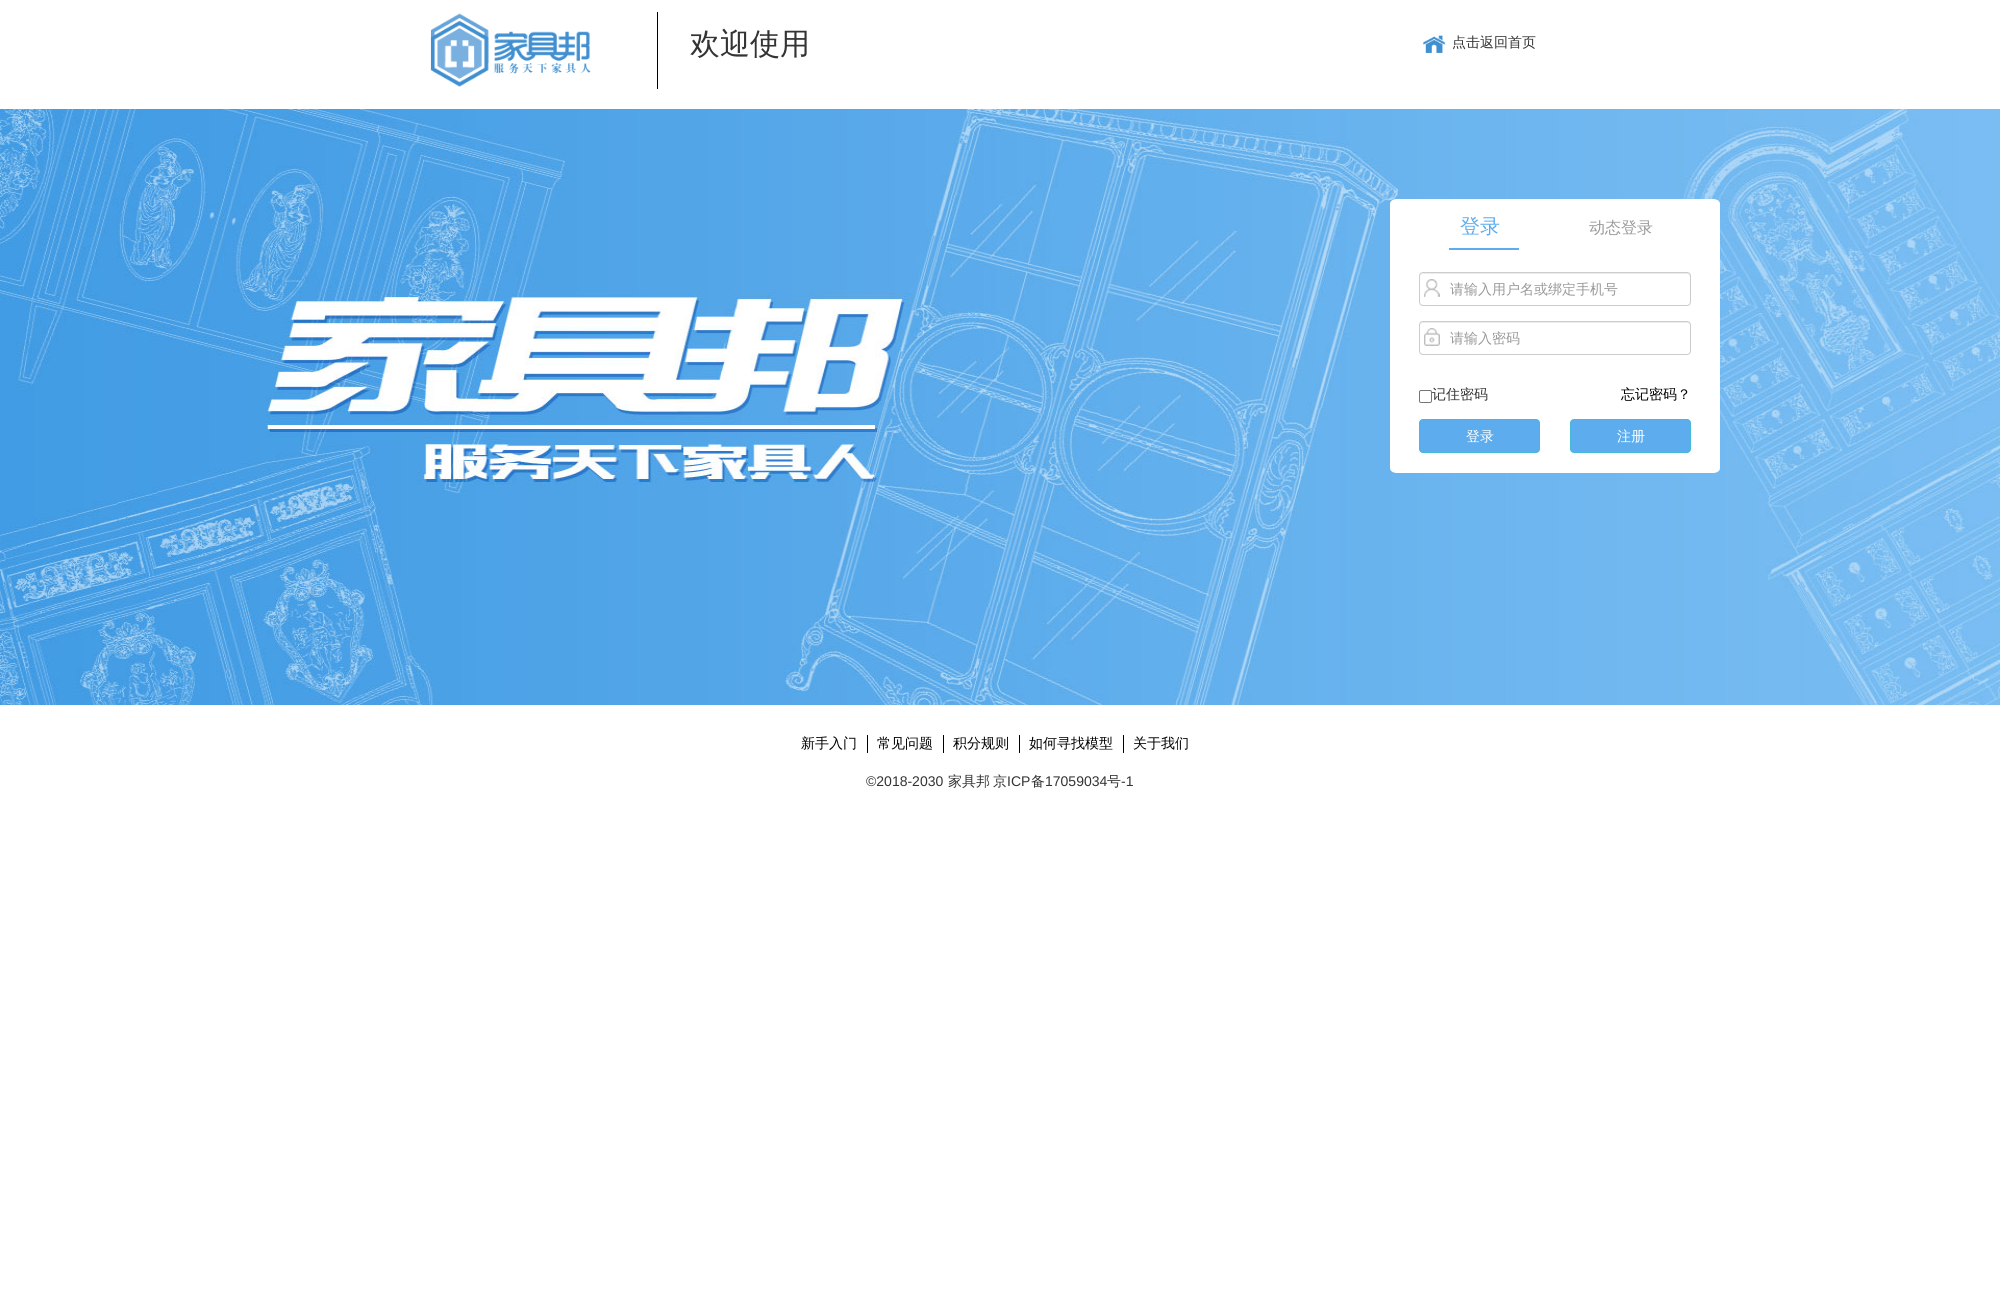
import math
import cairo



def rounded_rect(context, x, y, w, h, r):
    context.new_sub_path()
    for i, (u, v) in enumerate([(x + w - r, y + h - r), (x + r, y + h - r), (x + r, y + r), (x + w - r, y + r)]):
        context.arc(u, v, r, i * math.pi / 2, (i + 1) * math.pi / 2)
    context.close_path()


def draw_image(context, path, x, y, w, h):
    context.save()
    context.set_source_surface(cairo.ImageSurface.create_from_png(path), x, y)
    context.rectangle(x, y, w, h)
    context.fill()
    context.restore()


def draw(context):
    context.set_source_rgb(1, 1, 1)
    context.paint()
    context.set_source_rgb(0, 0, 0)
    context.rectangle(657, 12, 1, 77)
    context.fill()
    draw_image(context, "images/1.png", 430, 13, 161, 74)
    draw_image(context, "images/2.png", 1422, 35, 24, 18)
    draw_image(context, "images/3.png", 0, 109, 2000, 596)
    context.set_source_rgb(1, 1, 1)
    context.new_path()
    context.move_to(1397, 199)
    context.line_to(1713, 199)
    context.curve_to(1717, 199, 1720, 201, 1720, 204)
    context.line_to(1720, 468)
    context.curve_to(1720, 471, 1717, 473, 1713, 473)
    context.line_to(1397, 473)
    context.curve_to(1393, 473, 1390, 471, 1390, 468)
    context.line_to(1390, 204)
    context.curve_to(1390, 201, 1393, 199, 1397, 199)
    context.close_path()
    context.fill()
    context.set_source_rgb(92 / 255, 172 / 255, 238 / 255)
    context.rectangle(1449, 248, 70, 2)
    context.fill()
    draw_image(context, "images/4.png", 1424, 279, 16, 18)
    context.set_source_rgb(236 / 255, 236 / 255, 236 / 255)
    context.new_path()
    context.move_to(1423, 274)
    context.line_to(1687, 274)
    context.curve_to(1689, 274, 1690, 275, 1690, 277)
    context.line_to(1690, 276)
    context.curve_to(1690, 274, 1689, 273, 1687, 273)
    context.line_to(1423, 273)
    context.curve_to(1421, 273, 1420, 274, 1420, 276)
    context.line_to(1420, 277)
    context.curve_to(1420, 275, 1421, 274, 1423, 274)
    context.close_path()
    context.fill()
    rounded_rect(context, 1419.5, 272.5, 271, 33, 3.5)
    context.set_source_rgb(204 / 255, 204 / 255, 204 / 255)
    context.set_line_width(1)
    context.stroke()
    draw_image(context, "images/5.png", 1424, 328, 16, 18)
    context.set_source_rgb(236 / 255, 236 / 255, 236 / 255)
    context.new_path()
    context.move_to(1423, 323)
    context.line_to(1687, 323)
    context.curve_to(1689, 323, 1690, 324, 1690, 326)
    context.line_to(1690, 325)
    context.curve_to(1690, 323, 1689, 322, 1687, 322)
    context.line_to(1423, 322)
    context.curve_to(1421, 322, 1420, 323, 1420, 325)
    context.line_to(1420, 326)
    context.curve_to(1420, 324, 1421, 323, 1423, 323)
    context.close_path()
    context.fill()
    rounded_rect(context, 1419.5, 321.5, 271, 33, 3.5)
    context.set_source_rgb(204 / 255, 204 / 255, 204 / 255)
    context.stroke()
    rounded_rect(context, 1419.5, 390.5, 12, 12, 1.5)
    context.set_source_rgb(118 / 255, 118 / 255, 118 / 255)
    context.stroke()
    context.set_source_rgb(92 / 255, 172 / 255, 238 / 255)
    rounded_rect(context, 1419.5, 419.5, 120, 33, 3.5)
    context.fill_preserve()
    context.set_source_rgb(70 / 255, 184 / 255, 218 / 255)
    context.stroke()
    context.set_source_rgb(92 / 255, 172 / 255, 238 / 255)
    rounded_rect(context, 1570.5, 419.5, 120, 33, 3.5)
    context.fill_preserve()
    context.set_source_rgb(70 / 255, 184 / 255, 218 / 255)
    context.stroke()
    context.set_source_rgb(0, 0, 0)
    context.rectangle(867, 735, 1, 18)
    context.fill()
    context.rectangle(943, 735, 1, 18)
    context.fill()
    context.rectangle(1019, 735, 1, 18)
    context.fill()
    context.rectangle(1123, 735, 1, 18)
    context.fill()
    context.select_font_face("WenQuanYi Zen Hei Medium")
    context.set_font_size(30)
    context.set_source_rgb(51 / 255, 51 / 255, 51 / 255)
    context.move_to(690, 54)
    context.show_text("欢迎使用")
    context.set_font_size(14)
    context.move_to(1452, 47)
    context.show_text("点击返回首页")
    context.set_font_size(20)
    context.set_source_rgb(92 / 255, 172 / 255, 238 / 255)
    context.move_to(1460, 233)
    context.show_text("登录")
    context.set_font_size(16)
    context.set_source_rgb(153 / 255, 153 / 255, 153 / 255)
    context.move_to(1589, 233)
    context.show_text("动态登录")
    context.set_font_size(14)
    context.move_to(1450, 294)
    context.show_text("请输入用户名或绑定手机号")
    context.move_to(1450, 343)
    context.show_text("请输入密码")
    context.set_source_rgb(51 / 255, 51 / 255, 51 / 255)
    context.move_to(1432, 399)
    context.show_text("记住密码")
    context.set_source_rgb(0, 0, 0)
    context.move_to(1621, 399)
    context.show_text("忘记密码？")
    context.set_source_rgb(1, 1, 1)
    context.move_to(1466, 441)
    context.show_text("登录")
    context.move_to(1617, 441)
    context.show_text("注册")
    context.set_source_rgb(0, 0, 0)
    context.move_to(801, 748)
    context.show_text("新手入门")
    context.move_to(877, 748)
    context.show_text("常见问题")
    context.move_to(953, 748)
    context.show_text("积分规则")
    context.move_to(1029, 748)
    context.show_text("如何寻找模型")
    context.move_to(1133, 748)
    context.show_text("关于我们")
    context.select_font_face("Liberation Sans")
    context.set_source_rgb(51 / 255, 51 / 255, 51 / 255)
    context.move_to(866, 786)
    context.show_text("©2018-2030")
    context.select_font_face("WenQuanYi Zen Hei Medium")
    context.move_to(948, 786)
    context.show_text("家具邦")
    context.move_to(993, 786)
    context.show_text("京")
    context.select_font_face("Liberation Sans")
    context.move_to(1007, 786)
    context.show_text("ICP")
    context.select_font_face("WenQuanYi Zen Hei Medium")
    context.move_to(1031, 786)
    context.show_text("备")
    context.select_font_face("Liberation Sans")
    context.move_to(1045, 786)
    context.show_text("17059034")
    context.select_font_face("WenQuanYi Zen Hei Medium")
    context.move_to(1107, 786)
    context.show_text("号")
    context.select_font_face("Liberation Sans")
    context.move_to(1121, 786)
    context.show_text("-1")


surface = cairo.ImageSurface(cairo.Format.RGB24, 2000, 1306)
context = cairo.Context(surface)
options = cairo.FontOptions()
options.set_hint_metrics(cairo.HintMetrics.OFF)
options.set_hint_style(cairo.HintStyle.NONE)
context.set_font_options(options)
context.set_miter_limit(4)
draw(context)
surface.write_to_png("out.png")
